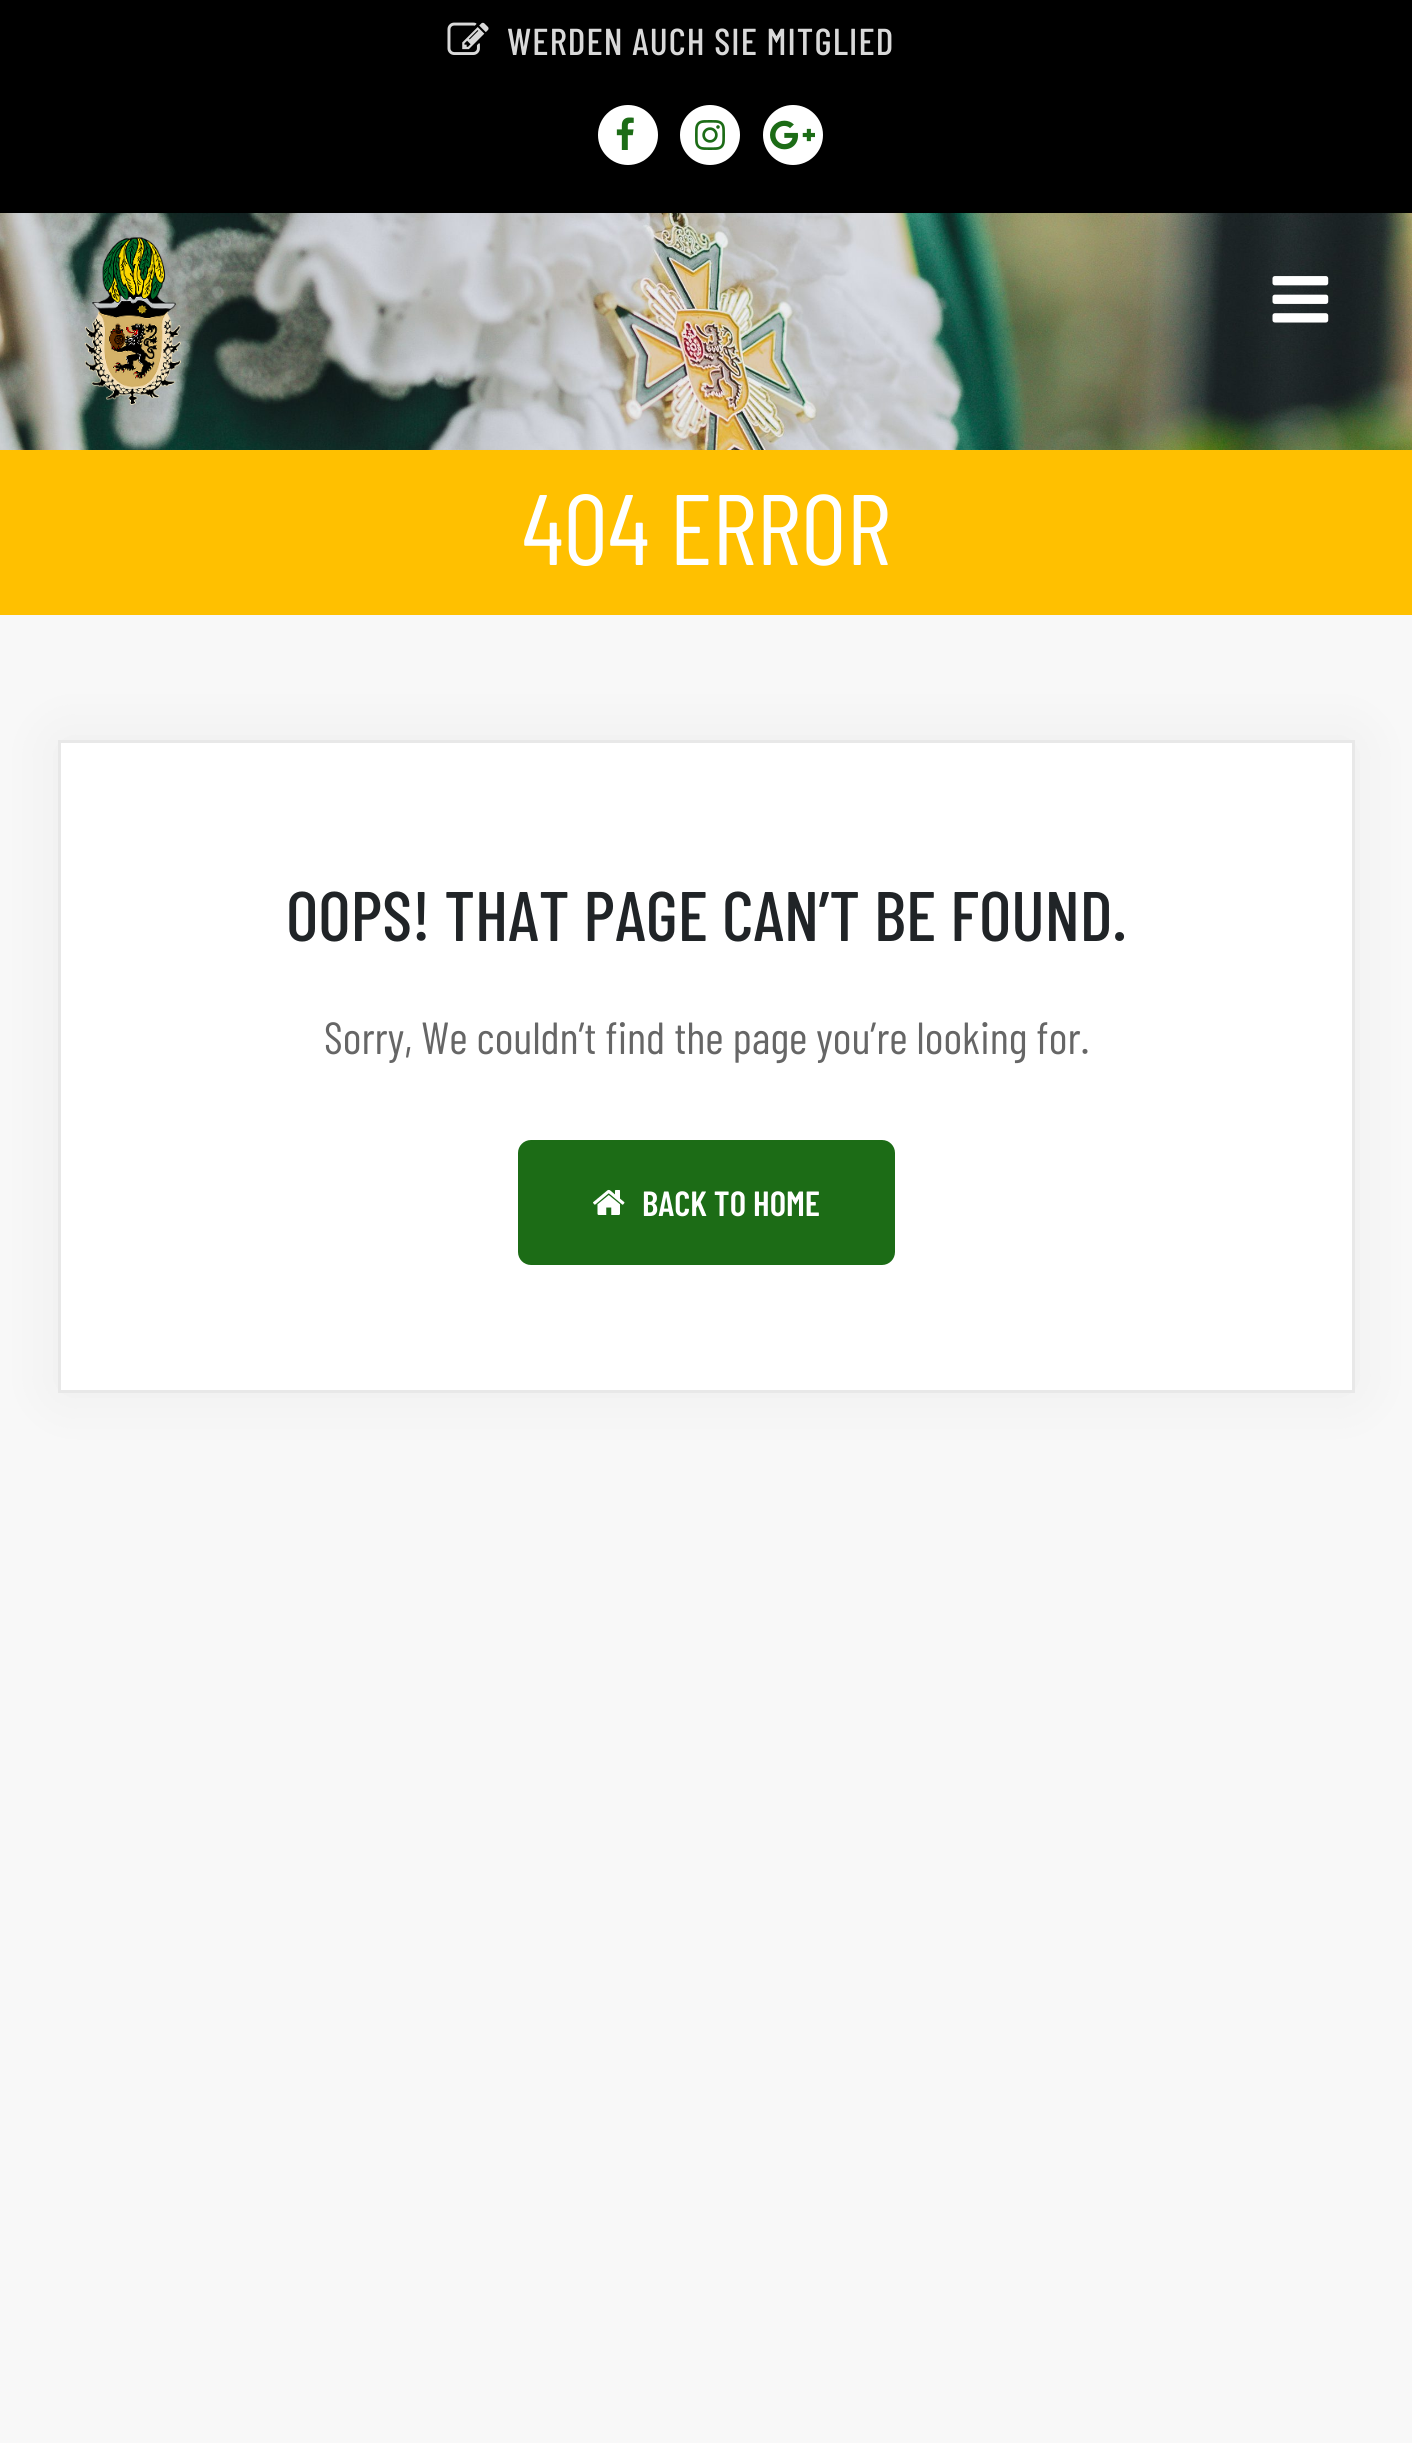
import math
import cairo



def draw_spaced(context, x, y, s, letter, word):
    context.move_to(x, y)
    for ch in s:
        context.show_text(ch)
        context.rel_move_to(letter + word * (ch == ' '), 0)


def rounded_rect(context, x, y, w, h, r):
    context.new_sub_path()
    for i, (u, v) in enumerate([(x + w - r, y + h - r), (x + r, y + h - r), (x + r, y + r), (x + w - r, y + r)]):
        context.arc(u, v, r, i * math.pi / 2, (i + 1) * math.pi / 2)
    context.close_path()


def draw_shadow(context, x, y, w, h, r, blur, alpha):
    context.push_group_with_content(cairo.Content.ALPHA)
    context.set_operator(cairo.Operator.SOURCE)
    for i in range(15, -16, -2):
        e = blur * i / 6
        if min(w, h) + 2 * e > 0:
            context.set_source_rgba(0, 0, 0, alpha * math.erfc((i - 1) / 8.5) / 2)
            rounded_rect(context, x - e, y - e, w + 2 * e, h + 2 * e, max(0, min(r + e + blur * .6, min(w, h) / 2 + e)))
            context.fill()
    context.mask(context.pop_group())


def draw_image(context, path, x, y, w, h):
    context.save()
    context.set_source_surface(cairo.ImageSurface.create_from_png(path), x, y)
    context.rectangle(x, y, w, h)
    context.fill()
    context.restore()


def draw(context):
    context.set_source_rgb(248 / 255, 248 / 255, 248 / 255)
    context.paint()
    context.set_source_rgb(0, 0, 0)
    context.rectangle(0, 0, 1412, 213)
    context.fill()
    draw_image(context, "images/1.png", 447, 22, 42, 33)
    context.set_source_rgb(1, 1, 1)
    context.arc(628, 135, 30, 0, 2 * math.pi)
    context.fill()
    draw_image(context, "images/2.png", 616, 117, 18, 33)
    context.arc(710, 135, 30, 0, 2 * math.pi)
    context.fill()
    draw_image(context, "images/3.png", 695, 120, 30, 30)
    context.arc(793, 135, 30, 0, 2 * math.pi)
    context.fill()
    draw_image(context, "images/4.png", 770, 120, 45, 30)
    draw_image(context, "images/5.png", 0, 213, 1412, 237)
    draw_image(context, "images/6.png", 84, 237, 97, 182)
    draw_image(context, "images/7.png", 1272, 276, 57, 47)
    context.set_source_rgb(1, 192 / 255, 0)
    context.rectangle(0, 450, 1412, 165)
    context.fill()
    context.set_source_rgb(0, 0, 0)
    draw_shadow(context, 58, 740, 1297, 653, 0, 31, 0.05)
    context.set_source_rgb(1, 1, 1)
    context.rectangle(59.5, 741.5, 1294, 650)
    context.fill_preserve()
    context.set_source_rgb(232 / 255, 232 / 255, 232 / 255)
    context.set_line_width(3)
    context.stroke()
    context.set_source_rgb(28 / 255, 108 / 255, 22 / 255)
    rounded_rect(context, 518, 1140, 377, 125, 13)
    context.fill()
    draw_image(context, "images/8.png", 593, 1189, 32, 26)
    context.select_font_face("Barlow Condensed Medium")
    context.set_font_size(37.5)
    context.set_source_rgb(217 / 255, 217 / 255, 217 / 255)
    draw_spaced(context, 507, 55, "WERDEN AUCH SIE MITGLIED", 1.1, 0)
    context.select_font_face("Barlow Condensed")
    context.set_font_size(100)
    context.set_source_rgb(1, 1, 1)
    context.move_to(522, 565)
    context.show_text("404 ERROR")
    context.select_font_face("Barlow Condensed Medium")
    context.set_font_size(70)
    context.set_source_rgb(32 / 255, 36 / 255, 39 / 255)
    context.move_to(286, 941)
    context.show_text("OOPS! THAT PAGE CAN’T BE FOUND.")
    context.select_font_face("Barlow Condensed")
    context.set_font_size(45)
    context.set_source_rgb(102 / 255, 102 / 255, 102 / 255)
    context.move_to(324, 1054)
    context.show_text("Sorry, We couldn’t find the page you’re looking for.")
    context.select_font_face("Barlow Condensed SemiBold")
    context.set_font_size(35)
    context.set_source_rgb(1, 1, 1)
    context.move_to(642, 1216)
    context.show_text("BACK TO HOME")


surface = cairo.ImageSurface(cairo.Format.RGB24, 1412, 2443)
context = cairo.Context(surface)
options = cairo.FontOptions()
options.set_hint_metrics(cairo.HintMetrics.OFF)
options.set_hint_style(cairo.HintStyle.NONE)
context.set_font_options(options)
context.set_miter_limit(4)
draw(context)
surface.write_to_png("out.png")
